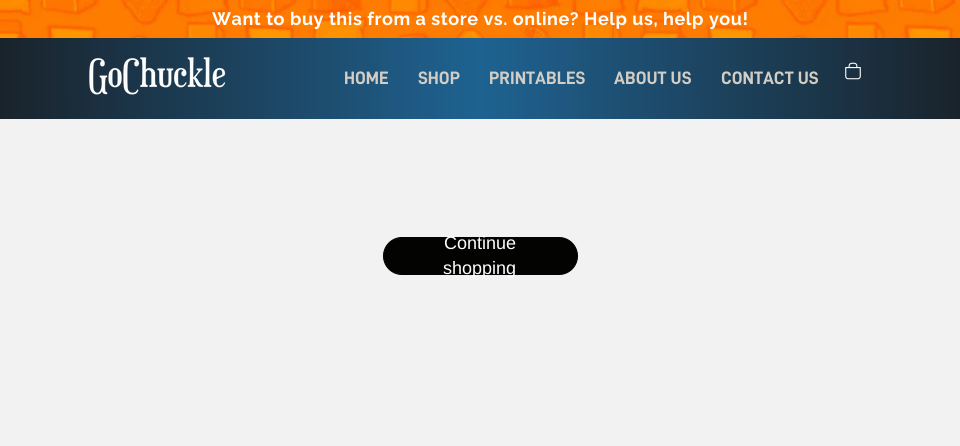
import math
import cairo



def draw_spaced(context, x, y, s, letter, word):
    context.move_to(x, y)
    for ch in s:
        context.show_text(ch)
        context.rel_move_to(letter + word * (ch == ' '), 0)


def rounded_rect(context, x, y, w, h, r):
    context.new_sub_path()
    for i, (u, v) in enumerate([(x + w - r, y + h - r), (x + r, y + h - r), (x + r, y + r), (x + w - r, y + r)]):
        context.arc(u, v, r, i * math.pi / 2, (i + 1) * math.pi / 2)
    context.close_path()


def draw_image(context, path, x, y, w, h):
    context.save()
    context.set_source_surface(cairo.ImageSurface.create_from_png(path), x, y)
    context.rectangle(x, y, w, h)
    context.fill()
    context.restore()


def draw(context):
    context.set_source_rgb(1, 1, 1)
    context.paint()
    draw_image(context, "images/1.png", 0, 0, 960, 38)
    gradient = cairo.LinearGradient(0, 79, 960, 78)
    gradient.add_color_stop_rgba(0, 145 / 255, 145 / 255, 145 / 255, 1)
    gradient.add_color_stop_rgba(0.5, 148 / 255, 195 / 255, 226 / 255, 1)
    gradient.add_color_stop_rgba(1, 145 / 255, 145 / 255, 145 / 255, 1)
    context.set_source(gradient)
    context.rectangle(0, 38, 960, 81)
    context.fill()
    context.set_source_rgba(44 / 255, 62 / 255, 80 / 255, 0.92)
    context.rectangle(0, 38, 960, 81)
    context.fill()
    gradient = cairo.LinearGradient(0, 79, 960, 78)
    gradient.add_color_stop_rgba(0, 0, 0, 0, 0.49)
    gradient.add_color_stop_rgba(0.5, 7 / 255, 125 / 255, 202 / 255, 0.49)
    gradient.add_color_stop_rgba(1, 0, 0, 0, 0.49)
    context.set_source(gradient)
    context.rectangle(0, 38, 960, 81)
    context.fill()
    draw_image(context, "images/2.png", 89, 57, 137, 38)
    draw_image(context, "images/3.png", 845, 62, 16, 18)
    context.set_source_rgb(242 / 255, 242 / 255, 242 / 255)
    context.rectangle(0, 119, 960, 327)
    context.fill()
    context.set_source_rgb(3 / 255, 3 / 255, 2 / 255)
    rounded_rect(context, 383.5, 237.5, 194, 37, 18.5)
    context.fill_preserve()
    context.set_line_width(1)
    context.stroke()
    context.select_font_face("Raleway", cairo.FontSlant.NORMAL, cairo.FontWeight.BOLD)
    context.set_font_size(18)
    context.set_source_rgb(1, 1, 1)
    draw_spaced(context, 212, 25, "Want to buy this from a store vs. online? Help us, help you!", 0.55, 0)
    context.select_font_face("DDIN", cairo.FontSlant.NORMAL, cairo.FontWeight.BOLD)
    context.set_source_rgb(211 / 255, 206 / 255, 197 / 255)
    context.move_to(344, 84)
    context.show_text("HOME")
    context.move_to(418, 84)
    context.show_text("SHOP")
    context.move_to(489, 84)
    context.show_text("PRINTABLES")
    context.move_to(614, 84)
    context.show_text("ABOUT US")
    context.move_to(721, 84)
    context.show_text("CONTACT US")
    context.select_font_face("Liberation Sans")
    context.set_source_rgb(1, 1, 1)
    context.move_to(444, 249)
    context.show_text("Continue")
    context.move_to(443, 274)
    context.show_text("shopping")


surface = cairo.ImageSurface(cairo.Format.RGB24, 960, 446)
context = cairo.Context(surface)
options = cairo.FontOptions()
options.set_hint_metrics(cairo.HintMetrics.OFF)
options.set_hint_style(cairo.HintStyle.NONE)
context.set_font_options(options)
context.set_miter_limit(4)
draw(context)
surface.write_to_png("out.png")
